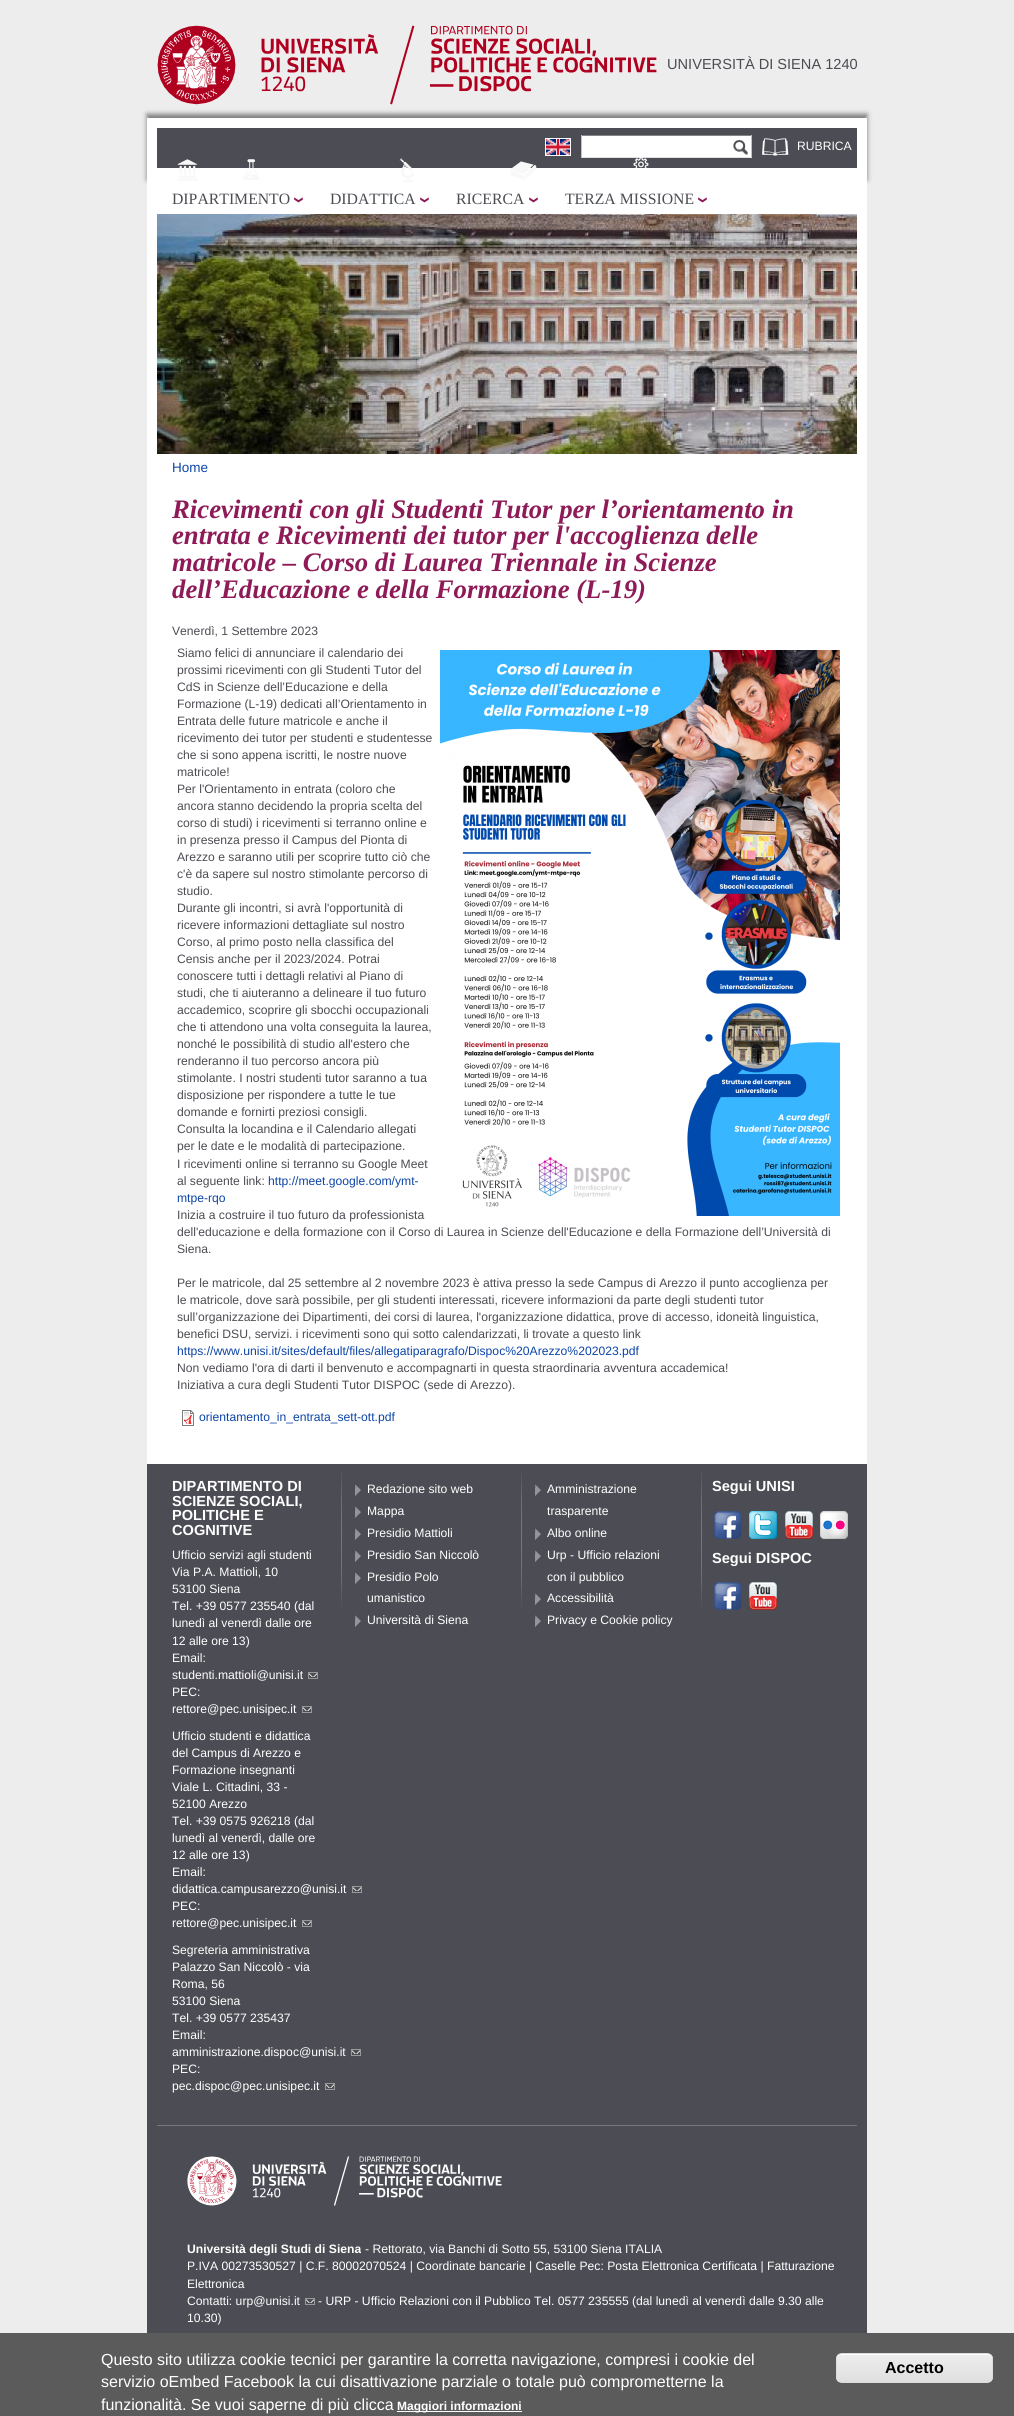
import math
import cairo



def rounded_rect(context, x, y, w, h, r):
    context.new_sub_path()
    for i, (u, v) in enumerate([(x + w - r, y + h - r), (x + r, y + h - r), (x + r, y + r), (x + w - r, y + r)]):
        context.arc(u, v, r, i * math.pi / 2, (i + 1) * math.pi / 2)
    context.close_path()


def draw_shadow(context, x, y, w, h, r, blur, alpha):
    context.push_group_with_content(cairo.Content.ALPHA)
    context.set_operator(cairo.Operator.SOURCE)
    for i in range(15, -16, -2):
        e = blur * i / 6
        if min(w, h) + 2 * e > 0:
            context.set_source_rgba(0, 0, 0, alpha * math.erfc((i - 1) / 8.5) / 2)
            rounded_rect(context, x - e, y - e, w + 2 * e, h + 2 * e, max(0, min(r + e + blur * .6, min(w, h) / 2 + e)))
            context.fill()
    context.mask(context.pop_group())


def draw_image(context, path, x, y, w, h):
    context.save()
    context.set_source_surface(cairo.ImageSurface.create_from_png(path), x, y)
    context.rectangle(x, y, w, h)
    context.fill()
    context.restore()


def draw(context):
    context.set_source_rgb(238 / 255, 237 / 255, 237 / 255)
    context.paint()
    draw_image(context, "images/1.png", 157, 25, 500, 80)
    context.set_source_rgb(124 / 255, 124 / 255, 124 / 255)
    draw_shadow(context, 147, 114, 720, 66, 0, 2.5, 1)
    context.set_source_rgb(1, 1, 1)
    context.rectangle(147, 118, 720, 1346)
    context.fill()
    context.set_source_rgb(76 / 255, 76 / 255, 84 / 255)
    context.rectangle(157, 128, 700, 40)
    context.fill()
    context.rectangle(545.5, 138.5, 25, 17)
    context.set_source_rgb(1, 1, 1)
    context.set_line_width(1)
    context.stroke()
    draw_image(context, "images/2.png", 546, 139, 24, 16)
    context.rectangle(582, 136, 169, 21)
    context.fill()
    context.set_source_rgb(132 / 255, 132 / 255, 132 / 255)
    context.rectangle(581, 135, 171, 1)
    context.fill()
    context.set_source_rgb(193 / 255, 193 / 255, 193 / 255)
    context.rectangle(751, 135, 1, 23)
    context.fill()
    context.set_source_rgb(225 / 255, 225 / 255, 225 / 255)
    context.rectangle(581, 157, 171, 1)
    context.fill()
    context.set_source_rgb(193 / 255, 193 / 255, 193 / 255)
    context.rectangle(581, 135, 1, 23)
    context.fill()
    draw_image(context, "images/3.png", 733, 140, 15, 15)
    draw_image(context, "images/4.png", 762, 138, 27, 18)
    draw_image(context, "images/5.png", 177, 159, 21, 22)
    draw_image(context, "images/6.png", 243, 159, 17, 21)
    draw_image(context, "images/7.png", 399, 158, 16, 24)
    draw_image(context, "images/8.png", 510, 161, 27, 19)
    draw_image(context, "images/9.png", 633, 157, 16, 11)
    draw_image(context, "images/10.png", 294, 197, 9, 6)
    draw_image(context, "images/10.png", 420, 197, 9, 6)
    draw_image(context, "images/10.png", 529, 197, 9, 6)
    draw_image(context, "images/10.png", 698, 197, 9, 6)
    draw_image(context, "images/11.png", 157, 214, 700, 240)
    draw_image(context, "images/12.png", 440, 650, 400, 566)
    draw_image(context, "images/13.png", 182, 1410, 12, 16)
    context.set_source_rgb(76 / 255, 76 / 255, 84 / 255)
    context.rectangle(147, 1464, 720, 869)
    context.fill()
    draw_image(context, "images/14.png", 308, 1672, 10, 7)
    draw_image(context, "images/14.png", 302, 1706, 10, 7)
    draw_image(context, "images/14.png", 352, 1886, 10, 7)
    draw_image(context, "images/14.png", 302, 1920, 10, 7)
    draw_image(context, "images/14.png", 351, 2049, 10, 7)
    draw_image(context, "images/14.png", 325, 2083, 10, 7)
    draw_image(context, "images/15.png", 341, 1470, 1, 138)
    draw_image(context, "images/16.png", 355, 1484, 6, 12)
    draw_image(context, "images/16.png", 355, 1506, 6, 12)
    draw_image(context, "images/16.png", 355, 1528, 6, 12)
    draw_image(context, "images/16.png", 355, 1550, 6, 12)
    draw_image(context, "images/16.png", 355, 1572, 6, 12)
    draw_image(context, "images/16.png", 355, 1615, 6, 12)
    draw_image(context, "images/15.png", 521, 1470, 1, 138)
    draw_image(context, "images/16.png", 535, 1484, 6, 12)
    draw_image(context, "images/16.png", 535, 1528, 6, 12)
    draw_image(context, "images/16.png", 535, 1550, 6, 12)
    draw_image(context, "images/16.png", 535, 1593, 6, 12)
    draw_image(context, "images/16.png", 535, 1615, 6, 12)
    draw_image(context, "images/15.png", 701, 1470, 1, 138)
    draw_image(context, "images/17.png", 714, 1511, 28, 28)
    draw_image(context, "images/18.png", 749, 1511, 28, 28)
    draw_image(context, "images/19.png", 785, 1511, 28, 28)
    draw_image(context, "images/20.png", 819, 1511, 29, 28)
    draw_image(context, "images/17.png", 714, 1582, 28, 28)
    draw_image(context, "images/19.png", 749, 1582, 28, 28)
    context.set_source_rgb(119 / 255, 118 / 255, 120 / 255)
    context.rectangle(157, 2125, 700, 1)
    context.fill()
    draw_image(context, "images/21.png", 187, 2156, 315, 50)
    draw_image(context, "images/14.png", 305, 2298, 10, 7)
    context.set_source_rgb(91 / 255, 91 / 255, 91 / 255)
    context.rectangle(0, 2333, 1014, 83)
    context.fill()
    context.set_source_rgb(1, 1, 1)
    context.rectangle(397, 2411, 125, 1)
    context.fill()
    context.save()
    rounded_rect(context, 836, 2353, 157, 30, 6)
    context.clip()
    gradient = cairo.LinearGradient(915, 2354, 915, 2382)
    gradient.add_color_stop_rgba(0.05, 237 / 255, 237 / 255, 237 / 255, 1)
    gradient.add_color_stop_rgba(1, 223 / 255, 223 / 255, 223 / 255, 1)
    context.set_source(gradient)
    context.rectangle(836, 2354, 157, 28)
    context.fill()
    context.restore()
    context.new_path()
    context.move_to(842, 2355)
    context.line_to(987, 2355)
    context.curve_to(990, 2355, 992, 2357, 992, 2360)
    context.line_to(992, 2359)
    context.curve_to(992, 2356, 990, 2354, 987, 2354)
    context.line_to(842, 2354)
    context.curve_to(839, 2354, 837, 2356, 837, 2359)
    context.line_to(837, 2360)
    context.curve_to(837, 2357, 839, 2355, 842, 2355)
    context.close_path()
    context.fill()
    rounded_rect(context, 836.5, 2353.5, 156, 29, 5.5)
    context.set_source_rgb(220 / 255, 220 / 255, 220 / 255)
    context.stroke()
    context.select_font_face("Liberation Sans")
    context.set_font_size(14.6)
    context.set_source_rgb(76 / 255, 76 / 255, 83 / 255)
    context.move_to(667, 69)
    context.show_text("UNIVERSITÀ DI SIENA 1240")
    context.set_font_size(12.15)
    context.set_source_rgb(1, 1, 1)
    context.move_to(797, 150)
    context.show_text("RUBRICA")
    context.select_font_face("Liberation Serif")
    context.set_font_size(15.75)
    context.set_source_rgb(76 / 255, 76 / 255, 83 / 255)
    context.move_to(172, 204)
    context.show_text("DIPARTIMENTO")
    context.move_to(330, 204)
    context.show_text("DIDATTICA")
    context.move_to(456, 204)
    context.show_text("RICERCA")
    context.move_to(565, 204)
    context.show_text("TERZA MISSIONE")
    context.select_font_face("Liberation Sans")
    context.set_font_size(13.5)
    context.set_source_rgb(13 / 255, 69 / 255, 166 / 255)
    context.move_to(172, 472)
    context.show_text("Home")
    context.select_font_face("Liberation Serif", cairo.FontSlant.ITALIC, cairo.FontWeight.BOLD)
    context.set_font_size(26.75)
    context.set_source_rgb(142 / 255, 27 / 255, 87 / 255)
    context.move_to(172, 518)
    context.show_text("Ricevimenti con gli Studenti Tutor per l’orientamento in")
    context.move_to(172, 544)
    context.show_text("entrata e Ricevimenti dei tutor per l'accoglienza delle")
    context.move_to(172, 571)
    context.show_text("matricole – Corso di Laurea Triennale in Scienze")
    context.move_to(172, 598)
    context.show_text("dell’Educazione e della Formazione (L-19)")
    context.select_font_face("Liberation Sans")
    context.set_font_size(12.15)
    context.set_source_rgb(76 / 255, 76 / 255, 83 / 255)
    context.move_to(172, 635)
    context.show_text("Venerdì, 1 Settembre 2023")
    context.move_to(177, 657)
    context.show_text("Siamo felici di annunciare il calendario dei")
    context.move_to(177, 674)
    context.show_text("prossimi ricevimenti con gli Studenti Tutor del")
    context.move_to(177, 691)
    context.show_text("CdS in Scienze dell’Educazione e della")
    context.move_to(177, 708)
    context.show_text("Formazione (L-19) dedicati all’Orientamento in")
    context.move_to(177, 725)
    context.show_text("Entrata delle future matricole e anche il")
    context.move_to(177, 742)
    context.show_text("ricevimento dei tutor per studenti e studentesse")
    context.move_to(177, 759)
    context.show_text("che si sono appena iscritti, le nostre nuove")
    context.move_to(177, 776)
    context.show_text("matricole!")
    context.move_to(177, 793)
    context.show_text("Per l'Orientamento in entrata (coloro che")
    context.move_to(177, 810)
    context.show_text("ancora stanno decidendo la propria scelta del")
    context.move_to(177, 827)
    context.show_text("corso di studi) i ricevimenti si terranno online e")
    context.move_to(177, 844)
    context.show_text("in presenza presso il Campus del Pionta di")
    context.move_to(177, 861)
    context.show_text("Arezzo e saranno utili per scoprire tutto ciò che")
    context.move_to(177, 878)
    context.show_text("c'è da sapere sul nostro stimolante percorso di")
    context.move_to(177, 895)
    context.show_text("studio.")
    context.move_to(177, 912)
    context.show_text("Durante gli incontri, si avrà l'opportunità di")
    context.move_to(177, 929)
    context.show_text("ricevere informazioni dettagliate sul nostro")
    context.move_to(177, 946)
    context.show_text("Corso, al primo posto nella classifica del")
    context.move_to(177, 963)
    context.show_text("Censis anche per il 2023/2024. Potrai")
    context.move_to(177, 980)
    context.show_text("conoscere tutti i dettagli relativi al Piano di")
    context.move_to(177, 997)
    context.show_text("studi, che ti aiuteranno a delineare il tuo futuro")
    context.move_to(177, 1014)
    context.show_text("accademico, scoprire gli sbocchi occupazionali")
    context.move_to(177, 1031)
    context.show_text("che ti attendono una volta conseguita la laurea,")
    context.move_to(177, 1048)
    context.show_text("nonché le possibilità di studio all'estero che")
    context.move_to(177, 1065)
    context.show_text("renderanno il tuo percorso ancora più")
    context.move_to(177, 1082)
    context.show_text("stimolante. I nostri studenti tutor saranno a tua")
    context.move_to(177, 1099)
    context.show_text("disposizione per rispondere a tutte le tue")
    context.move_to(177, 1116)
    context.show_text("domande e fornirti preziosi consigli.")
    context.move_to(177, 1133)
    context.show_text("Consulta la locandina e il Calendario allegati")
    context.move_to(177, 1150)
    context.show_text("per le date e le modalità di partecipazione.")
    context.move_to(177, 1168)
    context.show_text("I ricevimenti online si terranno su Google Meet")
    context.move_to(177, 1185)
    context.show_text("al seguente link:")
    context.set_source_rgb(13 / 255, 69 / 255, 166 / 255)
    context.move_to(268, 1185)
    context.show_text("http://meet.google.com/ymt-")
    context.move_to(177, 1202)
    context.show_text("mtpe-rqo")
    context.set_source_rgb(76 / 255, 76 / 255, 83 / 255)
    context.move_to(177, 1219)
    context.show_text("Inizia a costruire il tuo futuro da professionista")
    context.move_to(177, 1236)
    context.show_text("dell'educazione e della formazione con il Corso di Laurea in Scienze dell'Educazione e della Formazione dell’Università di")
    context.move_to(177, 1253)
    context.show_text("Siena.")
    context.move_to(177, 1287)
    context.show_text("Per le matricole, dal 25 settembre al 2 novembre 2023 è attiva presso la sede Campus di Arezzo il punto accoglienza per")
    context.move_to(177, 1304)
    context.show_text("le matricole, dove sarà possibile, per gli studenti interessati, ricevere informazioni da parte degli studenti tutor")
    context.move_to(177, 1321)
    context.show_text("sull’organizzazione dei Dipartimenti, dei corsi di laurea, l'organizzazione didattica, prove di accesso, idoneità linguistica,")
    context.move_to(177, 1338)
    context.show_text("benefici DSU, servizi. i ricevimenti sono qui sotto calendarizzati, li trovate a questo link")
    context.set_source_rgb(13 / 255, 69 / 255, 166 / 255)
    context.move_to(177, 1355)
    context.show_text("https://www.unisi.it/sites/default/files/allegatiparagrafo/Dispoc%20Arezzo%202023.pdf")
    context.set_source_rgb(76 / 255, 76 / 255, 83 / 255)
    context.move_to(177, 1372)
    context.show_text("Non vediamo l'ora di darti il benvenuto e accompagnarti in questa straordinaria avventura accademica!")
    context.move_to(177, 1389)
    context.show_text("Iniziativa a cura degli Studenti Tutor DISPOC (sede di Arezzo).")
    context.set_source_rgb(13 / 255, 69 / 255, 166 / 255)
    context.move_to(199, 1421)
    context.show_text("orientamento_in_entrata_sett-ott.pdf")
    context.select_font_face("Liberation Sans", cairo.FontSlant.NORMAL, cairo.FontWeight.BOLD)
    context.set_font_size(14.6)
    context.set_source_rgb(1, 1, 1)
    context.move_to(172, 1491)
    context.show_text("DIPARTIMENTO DI")
    context.move_to(172, 1506)
    context.show_text("SCIENZE SOCIALI,")
    context.move_to(172, 1520)
    context.show_text("POLITICHE E")
    context.move_to(172, 1535)
    context.show_text("COGNITIVE")
    context.select_font_face("Liberation Sans")
    context.set_font_size(12.15)
    context.move_to(172, 1559)
    context.show_text("Ufficio servizi agli studenti")
    context.move_to(172, 1576)
    context.show_text("Via P.A. Mattioli, 10")
    context.move_to(172, 1593)
    context.show_text("53100 Siena")
    context.move_to(172, 1610)
    context.show_text("Tel. +39 0577 235540 (dal")
    context.move_to(172, 1627)
    context.show_text("lunedì al venerdì dalle ore")
    context.move_to(172, 1645)
    context.show_text("12 alle ore 13)")
    context.move_to(172, 1662)
    context.show_text("Email:")
    context.move_to(172, 1679)
    context.show_text("studenti.mattioli@unisi.it")
    context.move_to(172, 1696)
    context.show_text("PEC:")
    context.move_to(172, 1713)
    context.show_text("rettore@pec.unisipec.it")
    context.move_to(172, 1740)
    context.show_text("Ufficio studenti e didattica")
    context.move_to(172, 1757)
    context.show_text("del Campus di Arezzo e")
    context.move_to(172, 1774)
    context.show_text("Formazione insegnanti")
    context.move_to(172, 1791)
    context.show_text("Viale L. Cittadini, 33 -")
    context.move_to(172, 1808)
    context.show_text("52100 Arezzo")
    context.move_to(172, 1825)
    context.show_text("Tel. +39 0575 926218 (dal")
    context.move_to(172, 1842)
    context.show_text("lunedì al venerdì, dalle ore")
    context.move_to(172, 1859)
    context.show_text("12 alle ore 13)")
    context.move_to(172, 1876)
    context.show_text("Email:")
    context.move_to(172, 1893)
    context.show_text("didattica.campusarezzo@unisi.it")
    context.move_to(172, 1910)
    context.show_text("PEC:")
    context.move_to(172, 1927)
    context.show_text("rettore@pec.unisipec.it")
    context.move_to(172, 1954)
    context.show_text("Segreteria amministrativa")
    context.move_to(172, 1971)
    context.show_text("Palazzo San Niccolò - via")
    context.move_to(172, 1988)
    context.show_text("Roma, 56")
    context.move_to(172, 2005)
    context.show_text("53100 Siena")
    context.move_to(172, 2022)
    context.show_text("Tel. +39 0577 235437")
    context.move_to(172, 2039)
    context.show_text("Email:")
    context.move_to(172, 2056)
    context.show_text("amministrazione.dispoc@unisi.it")
    context.move_to(172, 2073)
    context.show_text("PEC:")
    context.move_to(172, 2090)
    context.show_text("pec.dispoc@pec.unisipec.it")
    context.move_to(367, 1493)
    context.show_text("Redazione sito web")
    context.move_to(367, 1515)
    context.show_text("Mappa")
    context.move_to(367, 1537)
    context.show_text("Presidio Mattioli")
    context.move_to(367, 1559)
    context.show_text("Presidio San Niccolò")
    context.move_to(367, 1581)
    context.show_text("Presidio Polo")
    context.move_to(367, 1602)
    context.show_text("umanistico")
    context.move_to(367, 1624)
    context.show_text("Università di Siena")
    context.move_to(547, 1493)
    context.show_text("Amministrazione")
    context.move_to(547, 1515)
    context.show_text("trasparente")
    context.move_to(547, 1537)
    context.show_text("Albo online")
    context.move_to(547, 1559)
    context.show_text("Urp - Ufficio relazioni")
    context.move_to(547, 1581)
    context.show_text("con il pubblico")
    context.move_to(547, 1602)
    context.show_text("Accessibilità")
    context.move_to(547, 1624)
    context.show_text("Privacy e Cookie policy")
    context.select_font_face("Liberation Sans", cairo.FontSlant.NORMAL, cairo.FontWeight.BOLD)
    context.set_font_size(14.6)
    context.move_to(712, 1491)
    context.show_text("Segui UNISI")
    context.move_to(712, 1563)
    context.show_text("Segui DISPOC")
    context.set_font_size(12.15)
    context.move_to(187, 2253)
    context.show_text("Università degli Studi di Siena")
    context.select_font_face("Liberation Sans")
    context.move_to(365, 2253)
    context.show_text("- Rettorato, via Banchi di Sotto 55, 53100 Siena ITALIA")
    context.move_to(187, 2270)
    context.show_text("P.IVA 00273530527 | C.F. 80002070524 | Coordinate bancarie | Caselle Pec: Posta Elettronica Certificata | Fatturazione")
    context.move_to(187, 2288)
    context.show_text("Elettronica")
    context.move_to(187, 2305)
    context.show_text("Contatti: urp@unisi.it")
    context.move_to(318, 2305)
    context.show_text("- URP - Ufficio Relazioni con il Pubblico Tel. 0577 235555 (dal lunedì al venerdì dalle 9.30 alle")
    context.move_to(187, 2322)
    context.show_text("10.30)")
    context.set_font_size(16)
    context.move_to(101, 2365)
    context.show_text("Questo sito utilizza cookie tecnici per garantire la corretta navigazione, compresi i cookie del")
    context.move_to(101, 2387)
    context.show_text("servizio oEmbed Facebook la cui disattivazione parziale o totale può comprometterne la")
    context.move_to(101, 2410)
    context.show_text("funzionalità. Se vuoi saperne di più clicca")
    context.select_font_face("Liberation Sans", cairo.FontSlant.NORMAL, cairo.FontWeight.BOLD)
    context.set_font_size(12)
    context.move_to(397, 2410)
    context.show_text("Maggiori informazioni")
    context.set_font_size(16)
    context.set_source_rgb(0, 0, 0)
    context.move_to(885, 2373)
    context.show_text("Accetto")


surface = cairo.ImageSurface(cairo.Format.RGB24, 1014, 2416)
context = cairo.Context(surface)
options = cairo.FontOptions()
options.set_hint_metrics(cairo.HintMetrics.OFF)
options.set_hint_style(cairo.HintStyle.NONE)
context.set_font_options(options)
context.set_miter_limit(4)
draw(context)
surface.write_to_png("out.png")
